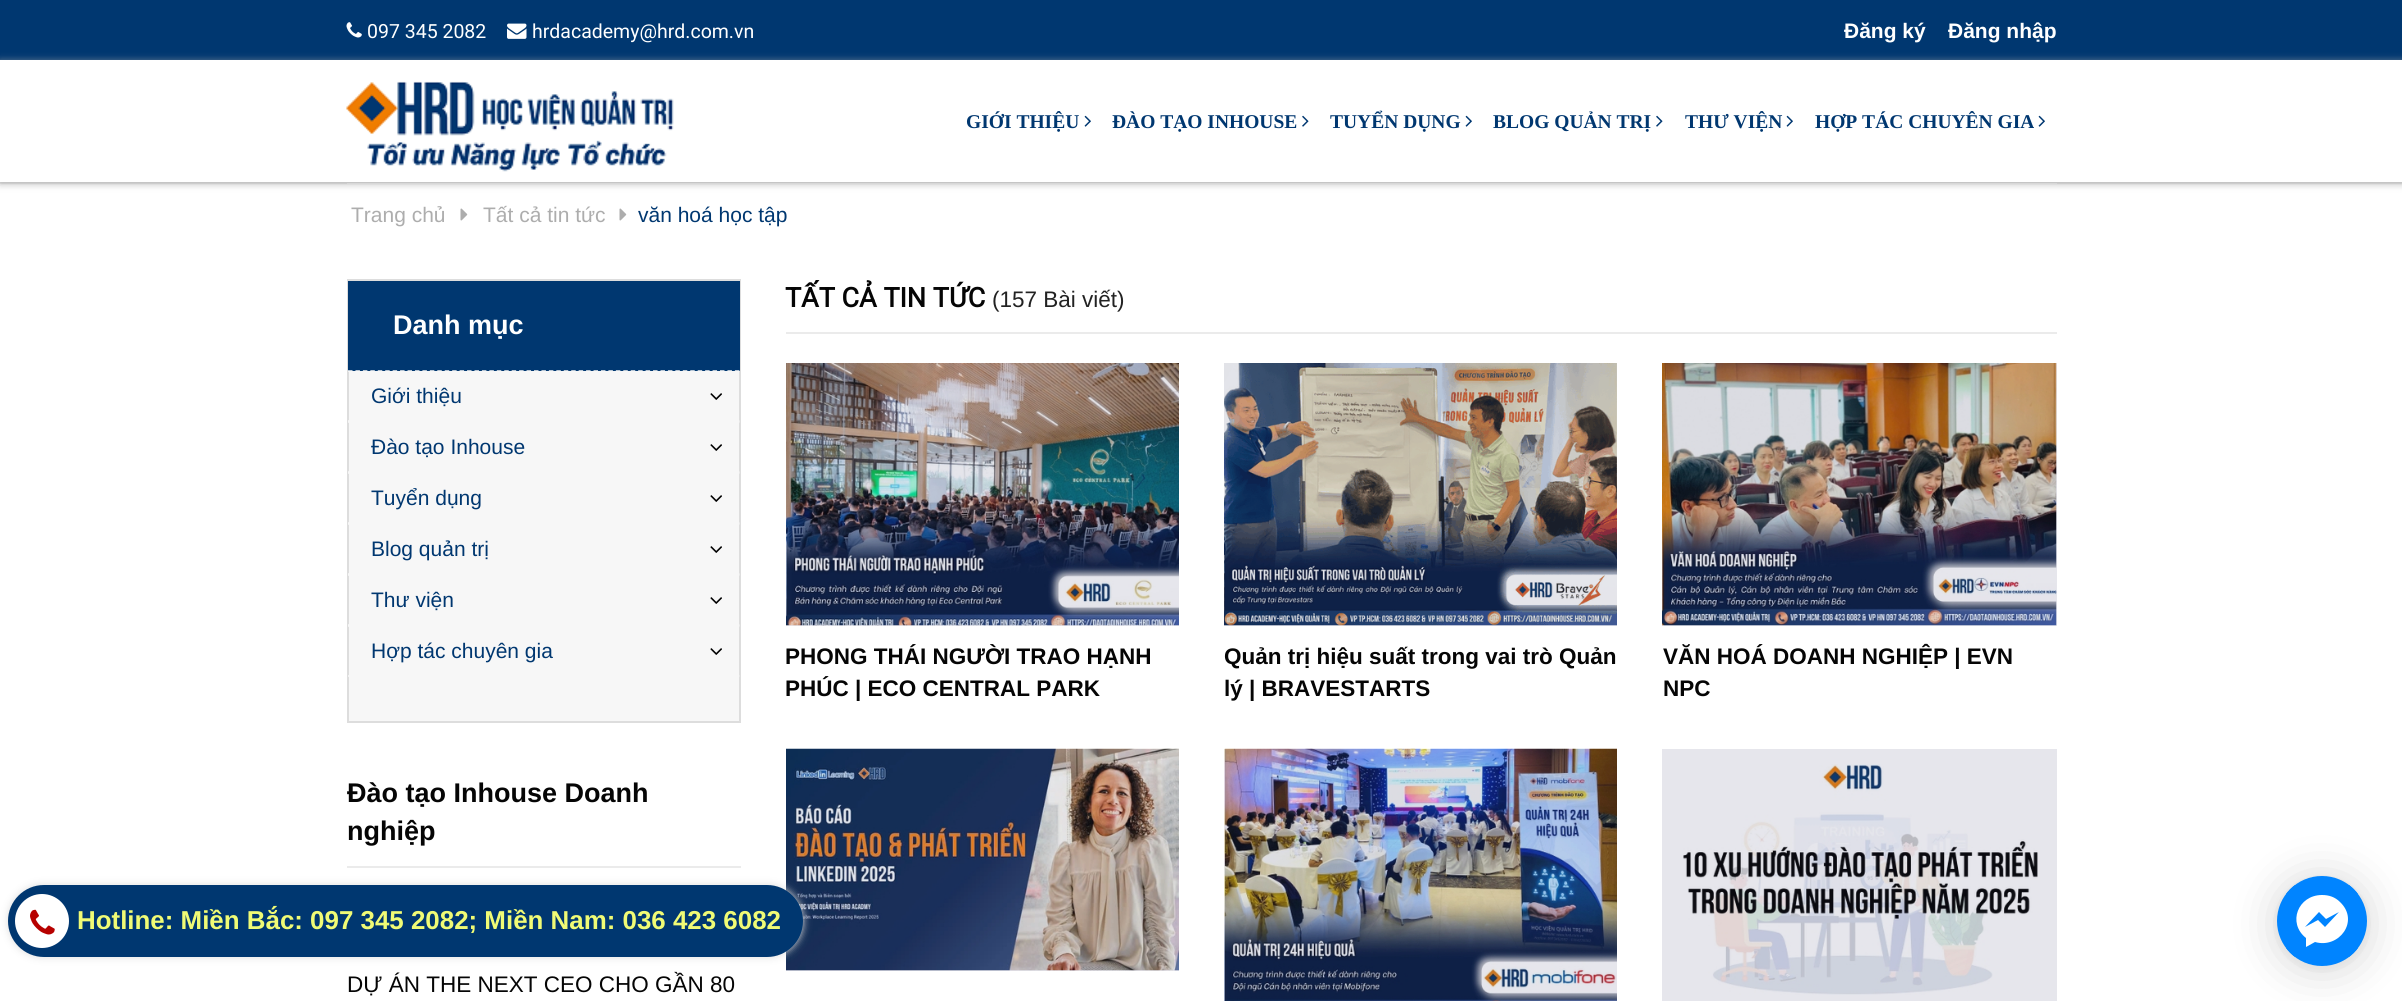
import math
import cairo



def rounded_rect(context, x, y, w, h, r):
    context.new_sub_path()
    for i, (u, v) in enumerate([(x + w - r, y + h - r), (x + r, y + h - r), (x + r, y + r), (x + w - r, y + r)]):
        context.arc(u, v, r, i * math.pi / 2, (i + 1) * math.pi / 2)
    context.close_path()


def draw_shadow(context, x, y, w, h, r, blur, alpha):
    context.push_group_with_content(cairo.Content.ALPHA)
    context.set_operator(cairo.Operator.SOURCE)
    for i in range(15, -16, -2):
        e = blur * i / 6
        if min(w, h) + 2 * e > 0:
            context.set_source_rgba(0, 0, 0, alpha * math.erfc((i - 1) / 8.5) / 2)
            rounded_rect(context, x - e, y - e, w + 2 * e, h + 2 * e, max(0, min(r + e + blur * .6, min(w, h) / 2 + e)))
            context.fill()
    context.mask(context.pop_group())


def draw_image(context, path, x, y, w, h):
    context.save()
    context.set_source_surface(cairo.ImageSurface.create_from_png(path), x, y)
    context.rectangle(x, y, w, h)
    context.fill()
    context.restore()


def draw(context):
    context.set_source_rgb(1, 1, 1)
    context.paint()
    context.set_source_rgb(230 / 255, 230 / 255, 236 / 255)
    context.rectangle(1662, 749, 395, 252)
    context.fill()
    context.rectangle(786, 970, 393, 1)
    context.fill()
    context.rectangle(1662, 363, 395, 263)
    context.fill()
    context.rectangle(1224, 625, 393, 1)
    context.fill()
    context.rectangle(786, 625, 393, 1)
    context.fill()
    context.set_source_rgb(235 / 255, 235 / 255, 235 / 255)
    context.rectangle(0, 182, 2402, 2)
    context.fill()
    context.set_source_rgb(0, 55 / 255, 112 / 255)
    context.rectangle(0, 0, 2402, 60)
    context.fill()
    draw_image(context, "images/1.png", 346, 22, 16, 16)
    draw_image(context, "images/2.png", 507, 23, 20, 16)
    context.set_source_rgb(1, 1, 1)
    context.rectangle(347, 183, 1710, 1)
    context.fill()
    context.save()
    context.set_fill_rule(cairo.FillRule.EVEN_ODD)
    context.new_path()
    context.move_to(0, 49)
    context.line_to(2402, 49)
    context.line_to(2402, 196)
    context.line_to(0, 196)
    context.close_path()
    context.move_to(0, 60)
    context.line_to(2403, 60)
    context.line_to(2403, 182)
    context.line_to(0, 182)
    context.close_path()
    context.clip()
    context.set_source_rgb(166 / 255, 166 / 255, 166 / 255)
    draw_shadow(context, 0, 62, 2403, 121, 0, 4, 1)
    context.restore()
    draw_image(context, "images/3.png", 346, 81, 328, 91)
    draw_image(context, "images/4.png", 1084, 115, 7, 12)
    draw_image(context, "images/5.png", 1302, 115, 7, 12)
    draw_image(context, "images/4.png", 1465, 115, 7, 12)
    draw_image(context, "images/5.png", 1656, 115, 7, 12)
    draw_image(context, "images/4.png", 1786, 115, 7, 12)
    draw_image(context, "images/4.png", 2038, 115, 7, 12)
    draw_image(context, "images/6.png", 460, 208, 8, 13)
    draw_image(context, "images/6.png", 619, 208, 8, 13)
    context.set_source_rgb(247 / 255, 247 / 255, 247 / 255)
    context.rectangle(349, 371, 390, 350)
    context.fill()
    context.rectangle(348, 280, 392, 442)
    context.set_source_rgb(221 / 255, 221 / 255, 221 / 255)
    context.stroke()
    context.set_source_rgb(0, 55 / 255, 112 / 255)
    context.rectangle(348, 281, 392, 90)
    context.fill()
    context.new_path()
    context.move_to(348, 371)
    context.line_to(739.5, 371)
    context.set_source_rgb(247 / 255, 247 / 255, 247 / 255)
    context.set_line_width(1.5)
    context.set_dash([4.5, 2.94])
    context.stroke()
    context.new_path()
    context.move_to(348, 421)
    context.line_to(739.5, 421)
    context.stroke()
    draw_image(context, "images/7.png", 710, 393, 12, 7)
    context.new_path()
    context.move_to(348, 422)
    context.line_to(739.5, 422)
    context.stroke()
    context.new_path()
    context.move_to(348, 472)
    context.line_to(739.5, 472)
    context.stroke()
    draw_image(context, "images/7.png", 710, 444, 12, 7)
    context.new_path()
    context.move_to(348, 473)
    context.line_to(739.5, 473)
    context.stroke()
    context.new_path()
    context.move_to(348, 523)
    context.line_to(739.5, 523)
    context.stroke()
    draw_image(context, "images/7.png", 710, 495, 12, 7)
    context.new_path()
    context.move_to(348, 524)
    context.line_to(739.5, 524)
    context.stroke()
    context.new_path()
    context.move_to(348, 574)
    context.line_to(739.5, 574)
    context.stroke()
    draw_image(context, "images/7.png", 710, 546, 12, 7)
    context.new_path()
    context.move_to(348, 575)
    context.line_to(739.5, 575)
    context.stroke()
    context.new_path()
    context.move_to(348, 625)
    context.line_to(739.5, 625)
    context.stroke()
    draw_image(context, "images/7.png", 710, 597, 12, 7)
    context.new_path()
    context.move_to(348, 626)
    context.line_to(739.5, 626)
    context.stroke()
    context.new_path()
    context.move_to(348, 676)
    context.line_to(739.5, 676)
    context.stroke()
    draw_image(context, "images/7.png", 710, 648, 12, 7)
    context.set_source_rgb(235 / 255, 235 / 255, 235 / 255)
    context.rectangle(347, 866, 394, 2)
    context.fill()
    context.rectangle(786, 332, 1271, 2)
    context.fill()
    draw_image(context, "images/8.png", 786, 363, 393, 263)
    draw_image(context, "images/9.png", 1224, 363, 393, 263)
    draw_image(context, "images/10.png", 1662, 363, 395, 263)
    draw_image(context, "images/11.png", 786, 748, 393, 223)
    draw_image(context, "images/12.png", 1224, 748, 393, 253)
    draw_image(context, "images/13.png", 1683, 764, 355, 231)
    context.set_source_rgb(0, 0, 0)
    draw_shadow(context, 2277, 879, 90, 90, 45, 24, 0.16)
    draw_shadow(context, 2277, 878, 90, 90, 45, 4.5, 0.06)
    context.set_source_rgb(0, 132 / 255, 1)
    context.arc(2322, 921, 45, 0, 2 * math.pi)
    context.fill()
    context.save()
    rounded_rect(context, 2277, 876, 90, 90, 45)
    context.clip()
    context.rectangle(2286, 885, 72, 72)
    context.fill()
    context.restore()
    context.set_source_rgb(1, 1, 1)
    context.new_path()
    context.move_to(2322, 895)
    context.curve_to(2298, 895, 2287, 923, 2306, 938)
    context.line_to(2306, 947)
    context.line_to(2315, 942)
    context.curve_to(2339, 949, 2360, 921, 2340, 902)
    context.curve_to(2335, 897, 2329, 895, 2322, 895)
    context.close_path()
    context.move_to(2325, 927)
    context.line_to(2318, 920)
    context.line_to(2305, 927)
    context.line_to(2319, 912)
    context.line_to(2326, 919)
    context.line_to(2339, 912)
    context.close_path()
    context.fill()
    context.set_source_rgb(221 / 255, 221 / 255, 221 / 255)
    draw_shadow(context, 8, 885, 795, 72, 36, 4, 1)
    context.set_source_rgb(0, 55 / 255, 112 / 255)
    rounded_rect(context, 8, 885, 795, 72, 36)
    context.fill()
    context.set_source_rgb(1, 1, 1)
    context.arc(42, 921, 27, 0, 2 * math.pi)
    context.fill()
    draw_image(context, "images/14.png", 30, 909, 25, 26)
    context.select_font_face("Roboto")
    context.set_font_size(19.5)
    context.move_to(367, 38)
    context.show_text("097 345 2082")
    context.move_to(532, 38)
    context.show_text("hrdacademy@hrd.com.vn")
    context.select_font_face("Liberation Sans", cairo.FontSlant.NORMAL, cairo.FontWeight.BOLD)
    context.set_font_size(21)
    context.move_to(1844, 38)
    context.show_text("Đăng ký")
    context.move_to(1948, 38)
    context.show_text("Đăng nhập")
    context.select_font_face("Liberation Serif", cairo.FontSlant.NORMAL, cairo.FontWeight.BOLD)
    context.set_font_size(19.5)
    context.set_source_rgb(0, 55 / 255, 112 / 255)
    context.move_to(966, 128)
    context.show_text("GIỚI THIỆU")
    context.move_to(1112, 128)
    context.show_text("ĐÀO TẠO INHOUSE")
    context.move_to(1330, 128)
    context.show_text("TUYỂN DỤNG")
    context.move_to(1493, 128)
    context.show_text("BLOG QUẢN TRỊ")
    context.move_to(1685, 128)
    context.show_text("THƯ VIỆN")
    context.move_to(1815, 128)
    context.show_text("HỢP TÁC CHUYÊN GIA")
    context.select_font_face("Liberation Sans")
    context.set_font_size(21)
    context.set_source_rgb(173 / 255, 173 / 255, 173 / 255)
    context.move_to(351, 222)
    context.show_text("Trang chủ")
    context.move_to(483, 222)
    context.show_text("Tất cả tin tức")
    context.set_source_rgb(0, 55 / 255, 112 / 255)
    context.move_to(638, 222)
    context.show_text("văn hoá học tập")
    context.select_font_face("Liberation Sans", cairo.FontSlant.NORMAL, cairo.FontWeight.BOLD)
    context.set_font_size(27)
    context.set_source_rgb(1, 1, 1)
    context.move_to(393, 334)
    context.show_text("Danh mục")
    context.select_font_face("Liberation Sans")
    context.set_font_size(21)
    context.set_source_rgb(0, 55 / 255, 112 / 255)
    context.move_to(371, 403)
    context.show_text("Giới thiệu")
    context.move_to(371, 454)
    context.show_text("Đào tạo Inhouse")
    context.move_to(371, 505)
    context.show_text("Tuyển dụng")
    context.move_to(371, 556)
    context.show_text("Blog quản trị")
    context.move_to(371, 607)
    context.show_text("Thư viện")
    context.move_to(371, 658)
    context.show_text("Hợp tác chuyên gia")
    context.select_font_face("Liberation Sans", cairo.FontSlant.NORMAL, cairo.FontWeight.BOLD)
    context.set_font_size(27)
    context.set_source_rgb(5 / 255, 5 / 255, 5 / 255)
    context.move_to(347, 802)
    context.show_text("Đào tạo Inhouse Doanh")
    context.move_to(347, 840)
    context.show_text("nghiệp")
    context.select_font_face("Liberation Sans")
    context.set_font_size(22.5)
    context.move_to(347, 992)
    context.show_text("DỰ ÁN THE NEXT CEO CHO GẦN 80")
    context.select_font_face("Roboto", cairo.FontSlant.NORMAL, cairo.FontWeight.BOLD)
    context.set_font_size(27)
    context.move_to(785, 307)
    context.show_text("TẤT CẢ TIN TỨC")
    context.select_font_face("Liberation Sans")
    context.set_font_size(22.5)
    context.set_source_rgb(34 / 255, 34 / 255, 34 / 255)
    context.move_to(992, 307)
    context.show_text("(157 Bài viết)")
    context.select_font_face("Liberation Sans", cairo.FontSlant.NORMAL, cairo.FontWeight.BOLD)
    context.set_source_rgb(5 / 255, 5 / 255, 5 / 255)
    context.move_to(785, 664)
    context.show_text("PHONG THÁI NGƯỜI TRAO HẠNH")
    context.move_to(785, 696)
    context.show_text("PHÚC | ECO CENTRAL PARK")
    context.move_to(1224, 664)
    context.show_text("Quản trị hiệu suất trong vai trò Quản")
    context.move_to(1224, 696)
    context.show_text("lý | BRAVESTARTS")
    context.move_to(1663, 664)
    context.show_text("VĂN HOÁ DOANH NGHIỆP | EVN")
    context.move_to(1663, 696)
    context.show_text("NPC")
    context.set_font_size(25.9)
    context.set_source_rgb(240 / 255, 251 / 255, 117 / 255)
    context.move_to(77, 929)
    context.show_text("Hotline: Miền Bắc: 097 345 2082; Miền Nam: 036 423 6082")


surface = cairo.ImageSurface(cairo.Format.RGB24, 2402, 1001)
context = cairo.Context(surface)
options = cairo.FontOptions()
options.set_hint_metrics(cairo.HintMetrics.OFF)
options.set_hint_style(cairo.HintStyle.NONE)
context.set_font_options(options)
context.set_miter_limit(4)
draw(context)
surface.write_to_png("out.png")
